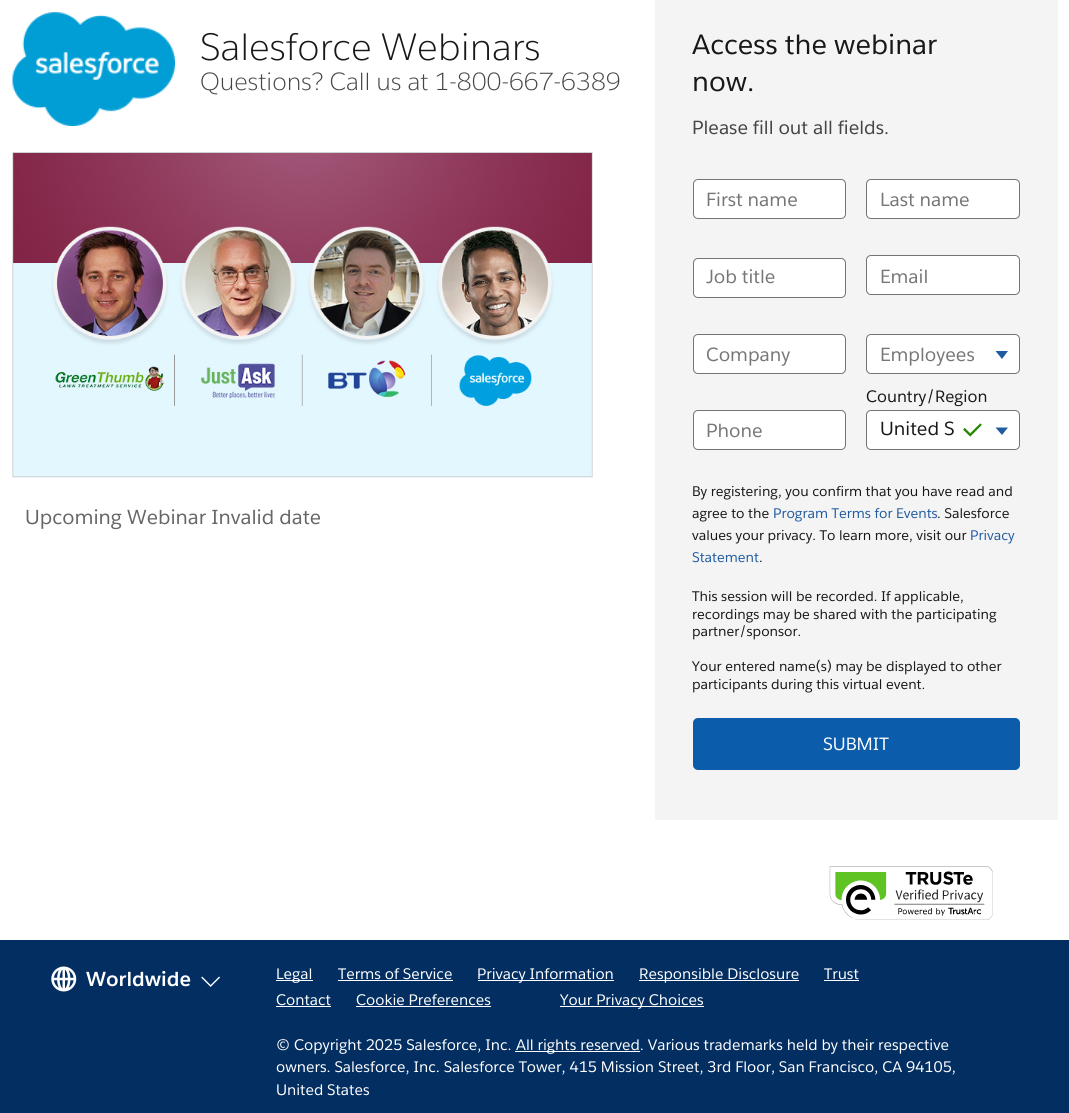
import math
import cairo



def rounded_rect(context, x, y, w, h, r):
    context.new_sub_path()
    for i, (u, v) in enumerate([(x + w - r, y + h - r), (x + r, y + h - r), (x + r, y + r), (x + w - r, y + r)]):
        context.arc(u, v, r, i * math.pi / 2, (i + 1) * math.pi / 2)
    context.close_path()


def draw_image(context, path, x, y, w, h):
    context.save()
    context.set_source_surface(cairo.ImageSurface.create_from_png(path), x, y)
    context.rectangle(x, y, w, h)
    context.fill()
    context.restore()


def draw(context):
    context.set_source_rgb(1, 1, 1)
    context.paint()
    draw_image(context, "images/1.png", 12, 12, 163, 114)
    draw_image(context, "images/2.png", 12, 152, 581, 326)
    context.set_source_rgb(244 / 255, 244 / 255, 244 / 255)
    context.rectangle(655, 0, 403, 820)
    context.fill()
    context.set_source_rgb(1, 1, 1)
    rounded_rect(context, 693.5, 179.5, 152, 39, 4.5)
    context.fill_preserve()
    context.set_source_rgb(116 / 255, 116 / 255, 116 / 255)
    context.set_line_width(1)
    context.stroke()
    context.set_source_rgb(1, 1, 1)
    rounded_rect(context, 866.5, 179.5, 153, 39, 4.5)
    context.fill_preserve()
    context.set_source_rgb(116 / 255, 116 / 255, 116 / 255)
    context.stroke()
    context.set_source_rgb(1, 1, 1)
    rounded_rect(context, 693.5, 258.5, 152, 39, 4.5)
    context.fill_preserve()
    context.set_source_rgb(116 / 255, 116 / 255, 116 / 255)
    context.stroke()
    context.set_source_rgb(1, 1, 1)
    rounded_rect(context, 866.5, 255.5, 153, 39, 4.5)
    context.fill_preserve()
    context.set_source_rgb(116 / 255, 116 / 255, 116 / 255)
    context.stroke()
    context.set_source_rgb(1, 1, 1)
    rounded_rect(context, 693.5, 334.5, 152, 39, 4.5)
    context.fill_preserve()
    context.set_source_rgb(116 / 255, 116 / 255, 116 / 255)
    context.stroke()
    context.set_source_rgb(1, 1, 1)
    rounded_rect(context, 866.5, 334.5, 153, 39, 4.5)
    context.fill_preserve()
    context.set_source_rgb(116 / 255, 116 / 255, 116 / 255)
    context.stroke()
    context.set_source_rgb(33 / 255, 92 / 255, 160 / 255)
    context.new_path()
    context.move_to(995.5, 351)
    context.line_to(1008, 351)
    context.line_to(1002, 359)
    context.close_path()
    context.fill()
    context.set_source_rgb(1, 1, 1)
    rounded_rect(context, 693.5, 410.5, 152, 39, 4.5)
    context.fill_preserve()
    context.set_source_rgb(116 / 255, 116 / 255, 116 / 255)
    context.stroke()
    context.set_source_rgb(1, 1, 1)
    rounded_rect(context, 866.5, 410.5, 153, 39, 4.5)
    context.fill_preserve()
    context.set_source_rgb(116 / 255, 116 / 255, 116 / 255)
    context.stroke()
    draw_image(context, "images/3.png", 963, 423, 19, 14)
    context.set_source_rgb(33 / 255, 92 / 255, 160 / 255)
    context.new_path()
    context.move_to(995.5, 427.5)
    context.line_to(1008, 427.5)
    context.line_to(1002, 435)
    context.close_path()
    context.fill()
    context.set_source_rgb(11 / 255, 92 / 255, 171 / 255)
    rounded_rect(context, 693, 718, 327, 52, 5)
    context.fill()
    draw_image(context, "images/4.png", 829, 866, 164, 54)
    context.set_source_rgb(3 / 255, 46 / 255, 97 / 255)
    context.rectangle(0, 940, 1069, 173)
    context.fill()
    draw_image(context, "images/5.png", 51, 966, 26, 26)
    draw_image(context, "images/6.png", 201, 976, 19, 11)
    context.set_source_rgb(1, 1, 1)
    context.rectangle(276, 980, 37, 1)
    context.fill()
    context.rectangle(338, 980, 115, 1)
    context.fill()
    context.rectangle(478, 980, 136, 1)
    context.fill()
    context.rectangle(639, 980, 160, 1)
    context.fill()
    context.rectangle(824, 980, 35, 1)
    context.fill()
    context.rectangle(276, 1006, 55, 1)
    context.fill()
    context.rectangle(356, 1006, 135, 1)
    context.fill()
    context.rectangle(560, 1006, 144, 1)
    context.fill()
    context.rectangle(515, 1051, 125, 1)
    context.fill()
    context.select_font_face("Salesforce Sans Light")
    context.set_font_size(37.5)
    context.set_source_rgb(24 / 255, 24 / 255, 24 / 255)
    context.move_to(200, 60)
    context.show_text("Salesforce Webinars")
    context.set_font_size(24.4)
    context.set_source_rgb(68 / 255, 68 / 255, 68 / 255)
    context.move_to(200, 90)
    context.show_text("Questions? Call us at 1-800-667-6389")
    context.select_font_face("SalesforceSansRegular")
    context.set_font_size(20)
    context.set_source_rgb(102 / 255, 102 / 255, 102 / 255)
    context.move_to(25, 524)
    context.show_text("Upcoming Webinar Invalid date")
    context.set_font_size(27.5)
    context.set_source_rgb(24 / 255, 24 / 255, 24 / 255)
    context.move_to(692, 54)
    context.show_text("Access the webinar")
    context.move_to(692, 91)
    context.show_text("now.")
    context.set_font_size(18.75)
    context.set_source_rgb(68 / 255, 68 / 255, 68 / 255)
    context.move_to(692, 134)
    context.show_text("Please fill out all fields.")
    context.set_source_rgb(118 / 255, 118 / 255, 118 / 255)
    context.move_to(706, 206)
    context.show_text("First name")
    context.move_to(880, 206)
    context.show_text("Last name")
    context.move_to(706, 283)
    context.show_text("Job title")
    context.move_to(880, 283)
    context.show_text("Email")
    context.move_to(706, 361)
    context.show_text("Company")
    context.move_to(880, 361)
    context.show_text("Employees")
    context.move_to(706, 437)
    context.show_text("Phone")
    context.set_font_size(16.25)
    context.set_source_rgb(24 / 255, 24 / 255, 24 / 255)
    context.move_to(866, 402)
    context.show_text("Country/Region")
    context.set_font_size(18.75)
    context.move_to(880, 435)
    context.show_text("United S")
    context.set_font_size(13.75)
    context.move_to(692, 496)
    context.show_text("By registering, you confirm that you have read and")
    context.move_to(692, 518)
    context.show_text("agree to the")
    context.set_source_rgb(33 / 255, 92 / 255, 160 / 255)
    context.move_to(773, 518)
    context.show_text("Program Terms for Events")
    context.set_source_rgb(24 / 255, 24 / 255, 24 / 255)
    context.move_to(937, 518)
    context.show_text(". Salesforce")
    context.move_to(692, 540)
    context.show_text("values your privacy. To learn more, visit our")
    context.set_source_rgb(33 / 255, 92 / 255, 160 / 255)
    context.move_to(970, 540)
    context.show_text("Privacy")
    context.move_to(692, 562)
    context.show_text("Statement")
    context.set_source_rgb(24 / 255, 24 / 255, 24 / 255)
    context.move_to(759, 562)
    context.show_text(".")
    context.move_to(692, 601)
    context.show_text("This session will be recorded. If applicable,")
    context.move_to(692, 619)
    context.show_text("recordings may be shared with the participating")
    context.move_to(692, 636)
    context.show_text("partner/sponsor.")
    context.move_to(692, 671)
    context.show_text("Your entered name(s) may be displayed to other")
    context.move_to(692, 689)
    context.show_text("participants during this virtual event.")
    context.set_font_size(17.5)
    context.set_source_rgb(1, 1, 1)
    context.move_to(823, 750)
    context.show_text("SUBMIT")
    context.select_font_face("Salesforce Sans", cairo.FontSlant.NORMAL, cairo.FontWeight.BOLD)
    context.set_font_size(20)
    context.move_to(86, 986)
    context.show_text("Worldwide")
    context.select_font_face("SalesforceSansRegular")
    context.set_font_size(15)
    context.move_to(276, 979)
    context.show_text("Legal")
    context.move_to(338, 979)
    context.show_text("Terms of Service")
    context.move_to(477, 979)
    context.show_text("Privacy Information")
    context.move_to(639, 979)
    context.show_text("Responsible Disclosure")
    context.move_to(824, 979)
    context.show_text("Trust")
    context.move_to(276, 1005)
    context.show_text("Contact")
    context.move_to(356, 1005)
    context.show_text("Cookie Preferences")
    context.move_to(560, 1005)
    context.show_text("Your Privacy Choices")
    context.move_to(276, 1050)
    context.show_text("© Copyright 2025 Salesforce, Inc.")
    context.move_to(516, 1050)
    context.show_text("All rights reserved. Various trademarks held by their respective")
    context.move_to(276, 1072)
    context.show_text("owners. Salesforce, Inc. Salesforce Tower, 415 Mission Street, 3rd Floor, San Francisco, CA 94105,")
    context.move_to(276, 1095)
    context.show_text("United States")


surface = cairo.ImageSurface(cairo.Format.RGB24, 1069, 1113)
context = cairo.Context(surface)
options = cairo.FontOptions()
options.set_hint_metrics(cairo.HintMetrics.OFF)
options.set_hint_style(cairo.HintStyle.NONE)
context.set_font_options(options)
context.set_miter_limit(4)
draw(context)
surface.write_to_png("out.png")
